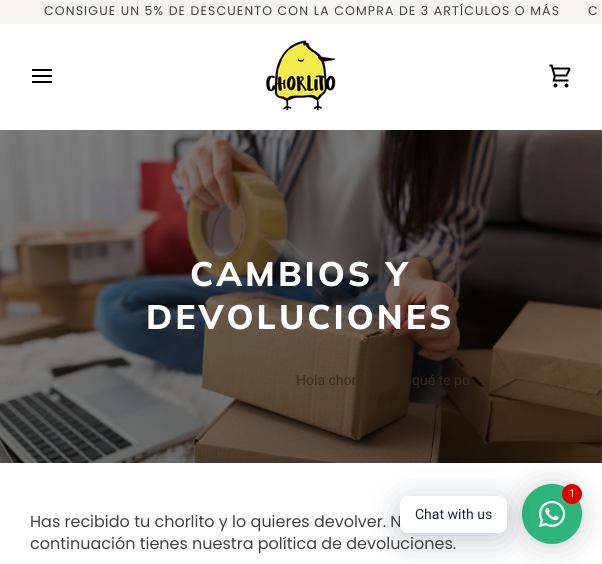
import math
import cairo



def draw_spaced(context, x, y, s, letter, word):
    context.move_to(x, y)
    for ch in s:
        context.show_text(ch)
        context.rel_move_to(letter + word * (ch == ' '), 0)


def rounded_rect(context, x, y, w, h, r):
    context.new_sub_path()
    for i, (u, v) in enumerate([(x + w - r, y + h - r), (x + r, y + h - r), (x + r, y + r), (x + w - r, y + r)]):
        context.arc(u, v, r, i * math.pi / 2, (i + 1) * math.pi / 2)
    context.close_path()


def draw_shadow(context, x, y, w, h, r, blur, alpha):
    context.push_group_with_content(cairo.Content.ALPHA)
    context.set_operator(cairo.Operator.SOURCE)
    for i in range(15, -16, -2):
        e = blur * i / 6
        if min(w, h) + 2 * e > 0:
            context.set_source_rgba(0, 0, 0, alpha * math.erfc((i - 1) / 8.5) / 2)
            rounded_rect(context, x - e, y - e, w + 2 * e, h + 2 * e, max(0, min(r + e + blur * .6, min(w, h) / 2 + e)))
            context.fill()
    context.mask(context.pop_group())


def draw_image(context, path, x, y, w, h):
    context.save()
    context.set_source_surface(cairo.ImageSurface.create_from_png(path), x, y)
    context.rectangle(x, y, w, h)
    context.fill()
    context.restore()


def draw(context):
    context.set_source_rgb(1, 1, 1)
    context.paint()
    context.set_source_rgb(247 / 255, 245 / 255, 244 / 255)
    context.rectangle(0, 0, 602, 24)
    context.fill()
    context.new_path()
    context.move_to(51, 70)
    context.line_to(33, 70)
    context.move_to(51, 76)
    context.line_to(33, 76)
    context.move_to(51, 82)
    context.line_to(33, 82)
    context.set_source_rgb(0, 0, 0)
    context.set_line_cap(cairo.LineCap.SQUARE)
    context.stroke()
    draw_image(context, "images/1.png", 266, 40, 70, 71)
    draw_image(context, "images/2.png", 549, 64, 22, 24)
    draw_image(context, "images/3.png", 0, 130, 602, 333)
    context.set_source_rgb(0, 0, 0)
    draw_shadow(context, 522, 486, 60, 60, 30, 16, 0.16)
    draw_shadow(context, 522, 485, 60, 60, 30, 3, 0.06)
    context.set_source_rgb(45 / 255, 182 / 255, 124 / 255)
    context.arc(552, 514, 30, 0, 2 * math.pi)
    context.fill()
    context.set_source_rgb(0, 18 / 255, 46 / 255)
    draw_shadow(context, 400, 502, 107, 37, 8, 16, 0.24)
    draw_image(context, "images/4.png", 539, 500, 27, 27)
    context.set_source_rgb(221 / 255, 0, 0)
    context.arc(572, 494, 10, 0, 2 * math.pi)
    context.fill()
    context.select_font_face("Poppins")
    context.set_font_size(12.5)
    context.set_source_rgb(66 / 255, 66 / 255, 66 / 255)
    draw_spaced(context, 44, 15, "CONSIGUE UN 5% DE DESCUENTO CON LA COMPRA DE 3 ARTÍCULOS O MÁS", 1.12, 0)
    draw_spaced(context, 588, 15, "C", 1.12, 0)
    context.select_font_face("Muli ExtraBold")
    context.set_font_size(34)
    context.set_source_rgb(1, 1, 1)
    draw_spaced(context, 190, 286, "CAMBIOS Y", 3, 0)
    draw_spaced(context, 146, 329, "DEVOLUCIONES", 3, 0)
    context.select_font_face("Poppins")
    context.set_font_size(16)
    context.set_source_rgb(66 / 255, 66 / 255, 66 / 255)
    context.move_to(30, 527)
    context.show_text("Has recibido tu chorlito y lo quieres devolver. N")
    context.move_to(30, 549)
    context.show_text("continuación tienes nuestra política de devoluciones.")
    context.select_font_face("Roboto")
    context.set_font_size(14)
    context.set_source_rgb(57 / 255, 43 / 255, 30 / 255)
    context.move_to(296, 385)
    context.show_text("Hola chor")
    context.move_to(412, 385)
    context.show_text("qué te po")
    context.set_font_size(11)
    context.set_source_rgb(1, 1, 1)
    context.move_to(569, 497)
    context.show_text("1")
    rounded_rect(context, 400, 496, 107, 37, 8)
    context.fill()
    context.set_font_size(14)
    context.set_source_rgb(30 / 255, 36 / 255, 51 / 255)
    context.move_to(415, 519)
    context.show_text("Chat with us")


surface = cairo.ImageSurface(cairo.Format.RGB24, 602, 564)
context = cairo.Context(surface)
options = cairo.FontOptions()
options.set_hint_metrics(cairo.HintMetrics.OFF)
options.set_hint_style(cairo.HintStyle.NONE)
context.set_font_options(options)
context.set_miter_limit(4)
draw(context)
surface.write_to_png("out.png")
